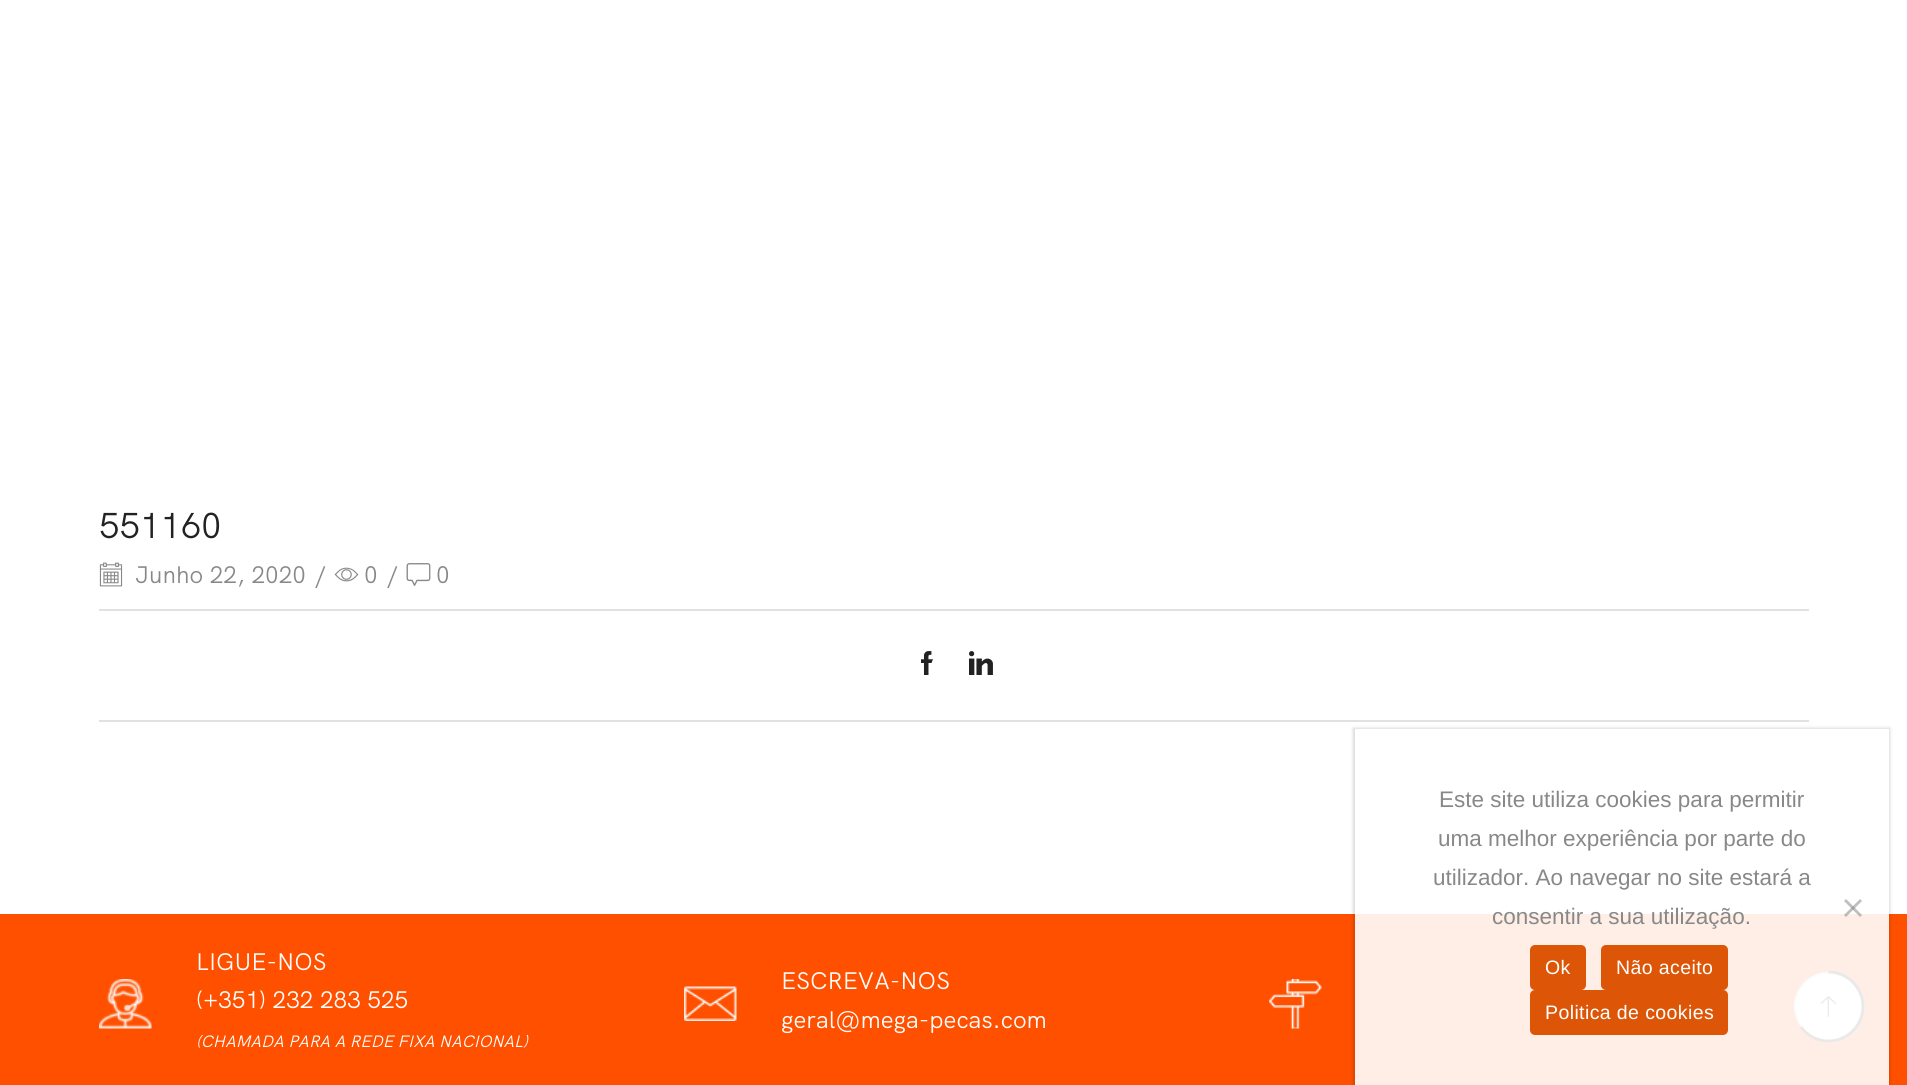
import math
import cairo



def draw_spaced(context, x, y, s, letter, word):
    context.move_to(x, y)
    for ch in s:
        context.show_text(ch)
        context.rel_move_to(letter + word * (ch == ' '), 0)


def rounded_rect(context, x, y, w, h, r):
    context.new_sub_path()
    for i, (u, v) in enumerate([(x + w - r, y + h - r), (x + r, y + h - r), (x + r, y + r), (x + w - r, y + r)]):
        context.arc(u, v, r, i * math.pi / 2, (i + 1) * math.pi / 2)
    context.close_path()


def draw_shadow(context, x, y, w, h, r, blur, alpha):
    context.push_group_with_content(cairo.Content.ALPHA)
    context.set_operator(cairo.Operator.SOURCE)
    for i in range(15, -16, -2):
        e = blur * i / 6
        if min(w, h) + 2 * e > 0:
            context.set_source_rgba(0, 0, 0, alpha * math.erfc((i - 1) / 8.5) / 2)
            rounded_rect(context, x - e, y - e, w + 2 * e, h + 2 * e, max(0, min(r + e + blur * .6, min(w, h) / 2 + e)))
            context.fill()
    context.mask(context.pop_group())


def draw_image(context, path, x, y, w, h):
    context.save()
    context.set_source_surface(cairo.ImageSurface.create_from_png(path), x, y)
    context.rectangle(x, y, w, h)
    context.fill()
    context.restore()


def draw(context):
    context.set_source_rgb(1, 1, 1)
    context.paint()
    draw_image(context, "images/1.png", 99, 562, 24, 25)
    draw_image(context, "images/2.png", 334, 567, 25, 15)
    draw_image(context, "images/3.png", 406, 563, 25, 23)
    context.set_source_rgb(225 / 255, 225 / 255, 225 / 255)
    context.rectangle(99, 609, 1710, 2)
    context.fill()
    context.rectangle(99, 720, 1710, 2)
    context.fill()
    draw_image(context, "images/4.png", 921, 651, 12, 24)
    draw_image(context, "images/5.png", 969, 651, 24, 24)
    context.set_source_rgb(1, 80 / 255, 0)
    context.rectangle(0, 914, 1907, 171)
    context.fill()
    draw_image(context, "images/6.png", 99, 979, 53, 50)
    draw_image(context, "images/7.png", 684, 986, 53, 35)
    draw_image(context, "images/8.png", 1269, 979, 53, 50)
    context.set_source_rgb(1, 1, 1)
    context.arc(1828.5, 1006.5, 33.5, 0, 2 * math.pi)
    context.fill_preserve()
    context.set_source_rgb(225 / 255, 225 / 255, 225 / 255)
    context.stroke()
    context.save()
    context.rectangle(1793, 971, 72, 72)
    context.clip()
    context.new_path()
    context.move_to(1828.5, 972)
    context.curve_to(1847.5, 972, 1863, 987.5, 1863, 1006.5)
    context.curve_to(1863, 1025.5, 1847.5, 1041, 1828.5, 1041)
    context.curve_to(1817, 1041, 1807, 1035.5, 1801, 1027)
    context.set_source_rgb(34 / 255, 34 / 255, 34 / 255)
    context.set_line_width(2.8)
    context.stroke()
    context.restore()
    draw_image(context, "images/9.png", 1820, 996, 16, 21)
    context.save()
    context.set_fill_rule(cairo.FillRule.EVEN_ODD)
    context.new_path()
    context.move_to(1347, 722)
    context.line_to(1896, 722)
    context.line_to(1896, 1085)
    context.line_to(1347, 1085)
    context.close_path()
    context.move_to(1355, 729)
    context.line_to(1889, 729)
    context.line_to(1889, 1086)
    context.line_to(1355, 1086)
    context.close_path()
    context.clip()
    context.set_source_rgb(0, 0, 0)
    draw_shadow(context, 1353, 728, 537, 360, 0, 1.5, 0.15)
    context.restore()
    context.set_source_rgba(1, 1, 1, 0.9)
    context.rectangle(1355, 729, 534, 356)
    context.fill()
    context.set_source_rgba(128 / 255, 128 / 255, 128 / 255, 0.5)
    context.new_path()
    context.move_to(1860, 899)
    context.line_to(1862, 901)
    context.line_to(1846, 917)
    context.line_to(1844, 915)
    context.close_path()
    context.fill()
    context.new_path()
    context.move_to(1844, 901)
    context.line_to(1846, 899)
    context.line_to(1862, 915)
    context.line_to(1860, 917)
    context.close_path()
    context.fill()
    context.set_source_rgb(221 / 255, 86 / 255, 8 / 255)
    rounded_rect(context, 1530, 945, 56, 45, 5)
    context.fill()
    rounded_rect(context, 1601, 945, 127, 45, 5)
    context.fill()
    rounded_rect(context, 1530, 990, 198, 45, 5)
    context.fill()
    context.select_font_face("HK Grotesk")
    context.set_font_size(36)
    context.set_source_rgb(34 / 255, 34 / 255, 34 / 255)
    context.move_to(99, 538)
    context.show_text("551160")
    context.set_font_size(24)
    context.set_source_rgb(136 / 255, 136 / 255, 136 / 255)
    context.move_to(135, 583)
    context.show_text("Junho 22, 2020")
    context.move_to(315, 583)
    context.show_text("/")
    context.move_to(364, 583)
    context.show_text("0")
    context.move_to(387, 583)
    context.show_text("/")
    context.move_to(436, 583)
    context.show_text("0")
    context.set_source_rgb(1, 1, 1)
    context.move_to(196, 970)
    context.show_text("LIGUE-NOS")
    context.move_to(196, 1008)
    context.show_text("(+351) 232 283 525")
    context.select_font_face("HK Grotesk", cairo.FontSlant.ITALIC)
    context.set_font_size(16.5)
    context.move_to(196, 1047)
    context.show_text("(CHAMADA PARA A REDE FIXA NACIONAL)")
    context.select_font_face("HK Grotesk")
    context.set_font_size(24)
    context.move_to(781, 989)
    context.show_text("ESCREVA-NOS")
    context.move_to(781, 1028)
    context.show_text("geral@mega-pecas.com")
    context.select_font_face("Liberation Sans")
    context.set_font_size(22.5)
    context.set_source_rgb(136 / 255, 136 / 255, 136 / 255)
    context.move_to(1439, 807)
    context.show_text("Este site utiliza cookies para permitir")
    context.move_to(1438, 846)
    context.show_text("uma melhor experiência por parte do")
    context.move_to(1433, 885)
    context.show_text("utilizador. Ao navegar no site estará a")
    context.move_to(1492, 924)
    context.show_text("consentir a sua utilização.")
    context.set_font_size(19.5)
    context.set_source_rgb(1, 1, 1)
    draw_spaced(context, 1545, 974, "Ok", 0.4, 0)
    draw_spaced(context, 1616, 974, "Não aceito", 0.4, 0)
    draw_spaced(context, 1545, 1019, "Politica de cookies", 0.4, 0)


surface = cairo.ImageSurface(cairo.Format.RGB24, 1907, 1085)
context = cairo.Context(surface)
options = cairo.FontOptions()
options.set_hint_metrics(cairo.HintMetrics.OFF)
options.set_hint_style(cairo.HintStyle.NONE)
context.set_font_options(options)
context.set_miter_limit(4)
draw(context)
surface.write_to_png("out.png")
